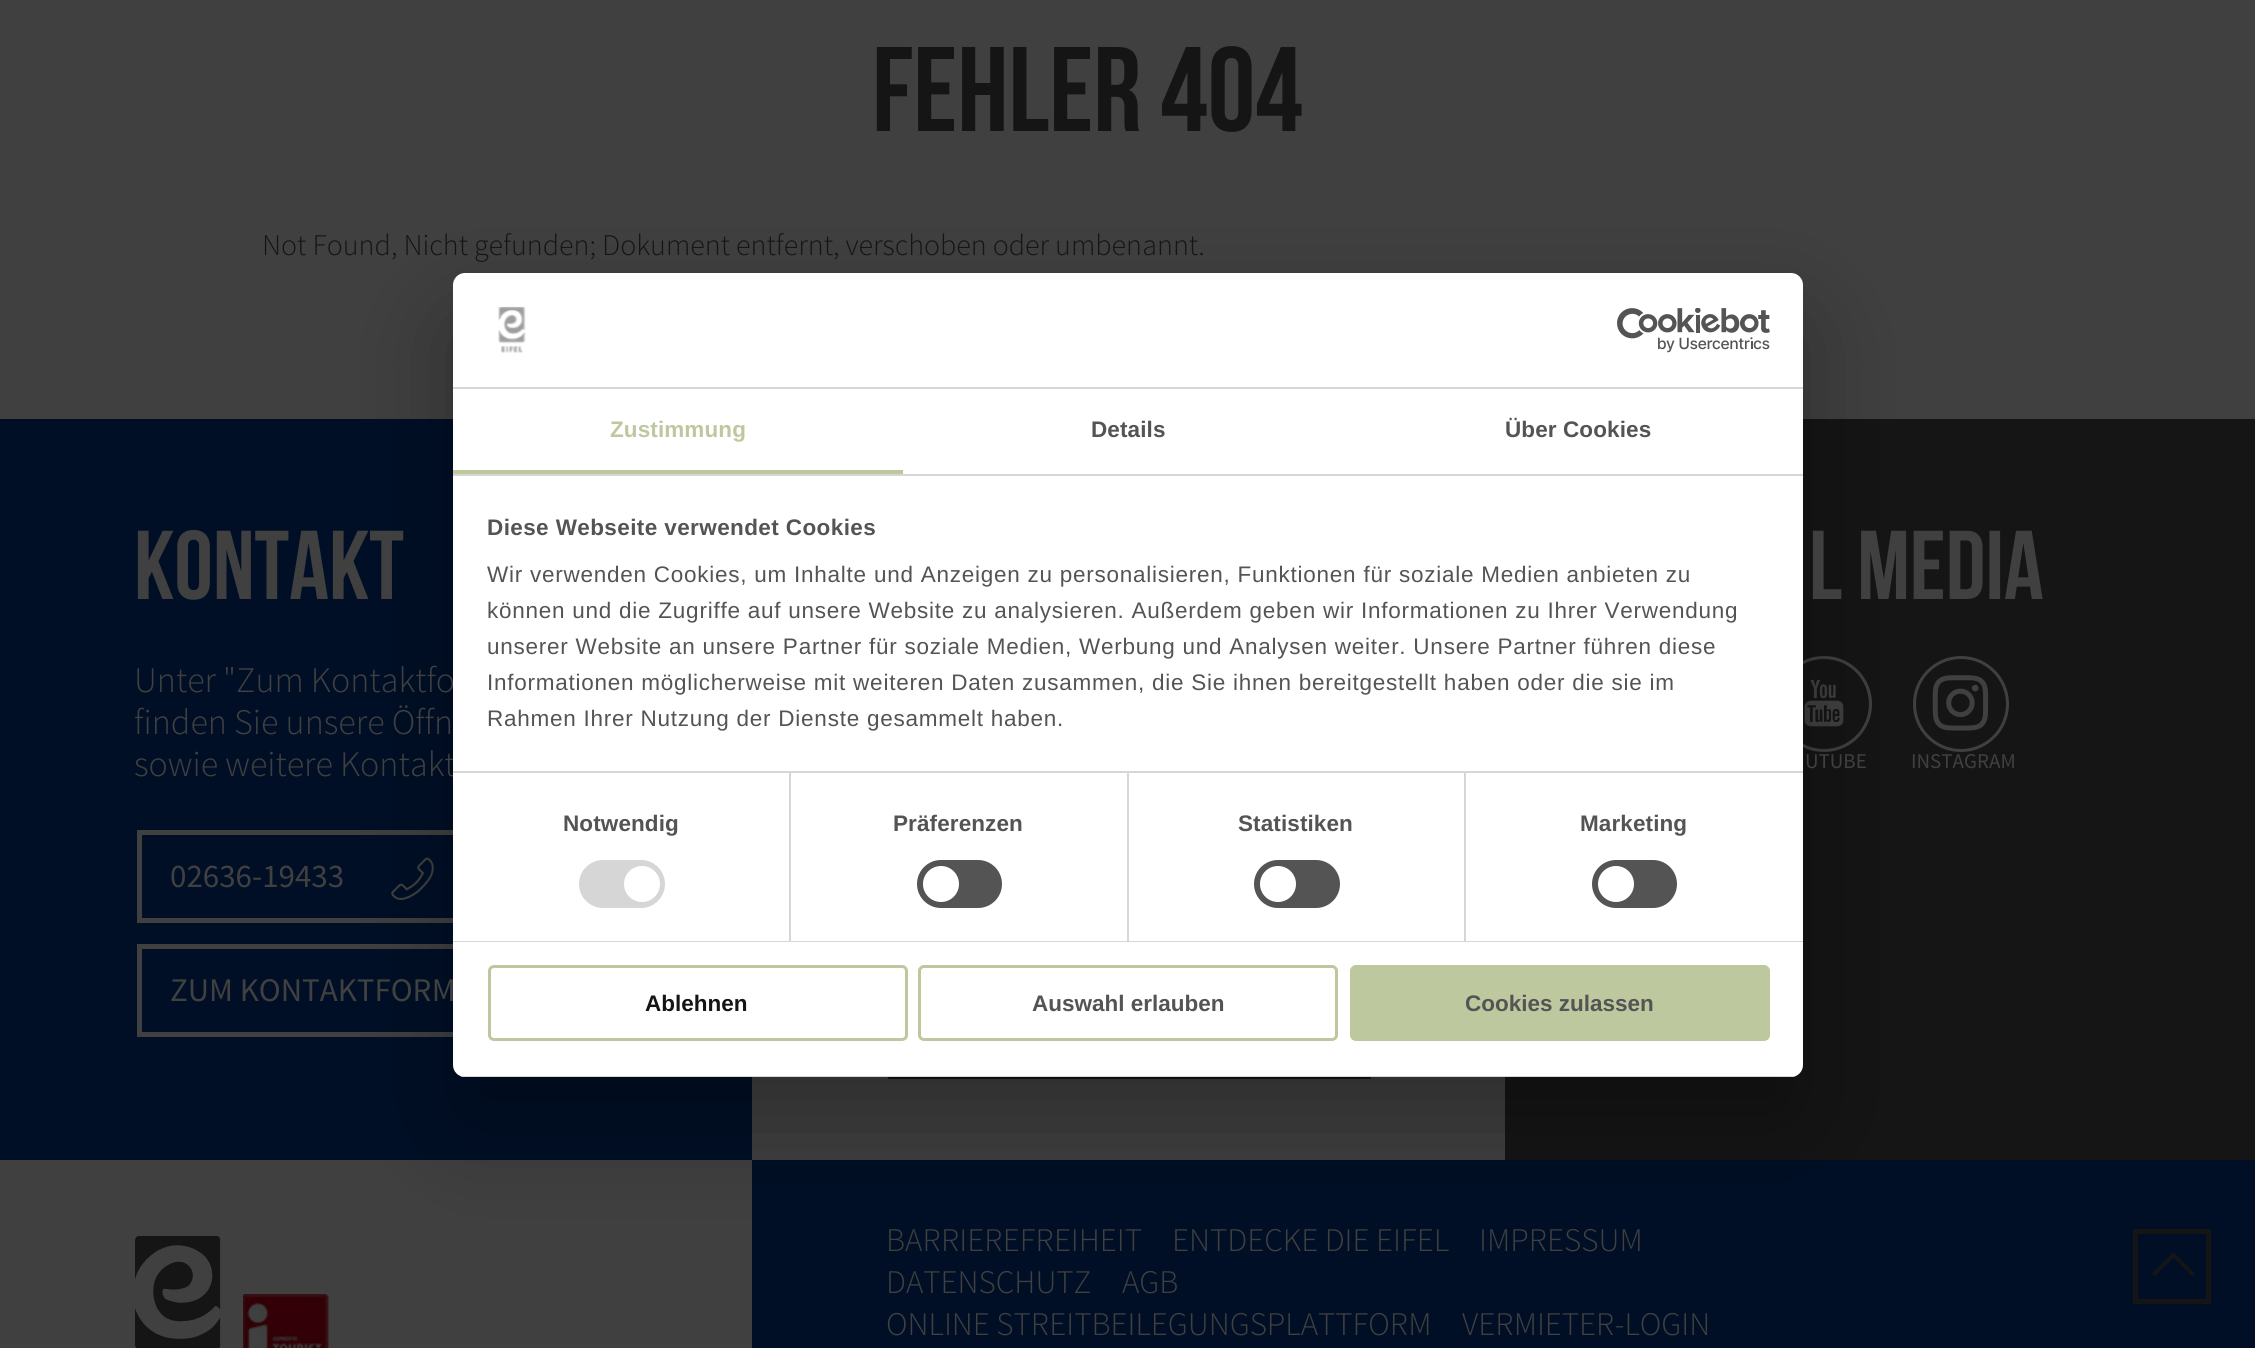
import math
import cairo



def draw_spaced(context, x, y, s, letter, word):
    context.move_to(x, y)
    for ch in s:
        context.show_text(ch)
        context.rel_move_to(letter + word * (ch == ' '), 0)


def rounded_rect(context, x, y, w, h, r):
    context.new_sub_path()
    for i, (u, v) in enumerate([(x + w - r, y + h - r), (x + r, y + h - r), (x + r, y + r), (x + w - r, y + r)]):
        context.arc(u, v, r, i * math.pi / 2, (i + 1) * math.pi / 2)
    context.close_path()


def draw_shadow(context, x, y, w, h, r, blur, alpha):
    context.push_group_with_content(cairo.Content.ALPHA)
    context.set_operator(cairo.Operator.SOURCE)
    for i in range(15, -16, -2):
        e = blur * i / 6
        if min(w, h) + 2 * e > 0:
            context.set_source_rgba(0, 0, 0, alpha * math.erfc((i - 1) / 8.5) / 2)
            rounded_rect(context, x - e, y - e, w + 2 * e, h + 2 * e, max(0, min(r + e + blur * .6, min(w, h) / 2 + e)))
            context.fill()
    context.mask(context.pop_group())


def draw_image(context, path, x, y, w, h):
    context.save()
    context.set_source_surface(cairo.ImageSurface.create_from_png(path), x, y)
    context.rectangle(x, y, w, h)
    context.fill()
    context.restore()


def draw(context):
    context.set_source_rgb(64 / 255, 64 / 255, 64 / 255)
    context.paint()
    context.set_source_rgb(0, 15 / 255, 38 / 255)
    context.rectangle(752, 1160, 1503, 188)
    context.fill()
    context.rectangle(2135.5, 1231.5, 73, 70)
    context.set_source_rgb(21 / 255, 21 / 255, 21 / 255)
    context.set_line_width(5)
    context.stroke()
    draw_image(context, "images/1.png", 2152, 1253, 43, 23)
    context.set_source_rgb(0, 15 / 255, 38 / 255)
    context.rectangle(0, 419, 752, 741)
    context.fill()
    context.rectangle(139.5, 832.5, 328, 88)
    context.set_source_rgb(64 / 255, 64 / 255, 64 / 255)
    context.stroke()
    draw_image(context, "images/4.png", 391, 857, 43, 43)
    context.rectangle(139.5, 946.5, 478, 88)
    context.stroke()
    context.set_source_rgb(21 / 255, 21 / 255, 21 / 255)
    context.rectangle(1505, 419, 750, 741)
    context.fill()
    context.arc(1824, 704, 46.5, 0, 2 * math.pi)
    context.set_source_rgb(64 / 255, 64 / 255, 64 / 255)
    context.set_line_width(3)
    context.stroke()
    draw_image(context, "images/5.png", 1804, 679, 40, 48)
    context.arc(1961, 704, 46.5, 0, 2 * math.pi)
    context.stroke()
    draw_image(context, "images/6.png", 1932, 675, 57, 56)
    context.rectangle(890.5, 988.5, 478, 88)
    context.set_source_rgb(21 / 255, 21 / 255, 21 / 255)
    context.set_line_width(5)
    context.stroke()
    context.set_source_rgb(0, 0, 0)
    draw_shadow(context, 453, 321, 1350, 804, 12, 51, 0.3)
    draw_image(context, "images/7.png", 135, 1236, 86, 112)
    draw_image(context, "images/8.png", 243, 1294, 86, 54)
    context.select_font_face("Bebas Neue", cairo.FontSlant.NORMAL, cairo.FontWeight.BOLD)
    context.set_font_size(120)
    context.set_source_rgb(21 / 255, 21 / 255, 21 / 255)
    context.move_to(872, 131)
    context.show_text("Fehler 404")
    context.select_font_face("Source Sans Pro Light")
    context.set_font_size(30)
    context.move_to(262, 255)
    context.show_text("Not Found, Nicht gefunden; Dokument entfernt, verschoben oder umbenannt.")
    context.select_font_face("Bebas Neue", cairo.FontSlant.NORMAL, cairo.FontWeight.BOLD)
    context.set_font_size(97.5)
    context.set_source_rgb(64 / 255, 64 / 255, 64 / 255)
    context.move_to(134, 599)
    context.show_text("KONTAKT")
    context.select_font_face("Source Sans Pro Light")
    context.set_font_size(36)
    context.move_to(134, 692)
    context.show_text("Unter \"Zum Kontaktfo")
    context.move_to(134, 734)
    context.show_text("finden Sie unsere Öffn")
    context.move_to(134, 776)
    context.show_text("sowie weitere Kontakt")
    context.select_font_face("Source Sans Pro")
    context.set_font_size(33)
    context.move_to(170, 887)
    context.show_text("02636-19433")
    context.move_to(170, 1001)
    context.show_text("ZUM KONTAKTFORM")
    context.set_source_rgb(1, 1, 1)
    rounded_rect(context, 453, 273, 1350, 804, 12)
    context.fill()
    context.set_source_rgb(190 / 255, 200 / 255, 159 / 255)
    rounded_rect(context, 1351.5, 966.5, 417, 73, 4.5)
    context.fill_preserve()
    context.set_line_width(3)
    context.stroke()
    context.select_font_face("Liberation Sans", cairo.FontSlant.NORMAL, cairo.FontWeight.BOLD)
    context.set_font_size(22.5)
    context.set_source_rgb(84 / 255, 84 / 255, 84 / 255)
    context.move_to(1465, 1011)
    context.show_text("Cookies zulassen")
    rounded_rect(context, 919.5, 966.5, 417, 73, 4.5)
    context.set_source_rgb(190 / 255, 200 / 255, 159 / 255)
    context.stroke()
    context.set_source_rgb(84 / 255, 84 / 255, 84 / 255)
    context.move_to(1032, 1011)
    context.show_text("Auswahl erlauben")
    rounded_rect(context, 489.5, 966.5, 417, 73, 4.5)
    context.set_source_rgb(190 / 255, 200 / 255, 159 / 255)
    context.stroke()
    context.set_source_rgb(21 / 255, 21 / 255, 21 / 255)
    context.move_to(645, 1011)
    context.show_text("Ablehnen")
    context.save()
    rounded_rect(context, 453, 273, 1350, 804, 12)
    context.clip()
    context.set_source_rgb(214 / 255, 214 / 255, 214 / 255)
    context.rectangle(453, 1076, 1350, 1)
    context.fill()
    context.restore()
    context.set_source_rgb(84 / 255, 84 / 255, 84 / 255)
    rounded_rect(context, 1592, 860, 85, 48, 24)
    context.fill()
    context.set_source_rgb(1, 1, 1)
    context.arc(1616, 884, 18, 0, 2 * math.pi)
    context.fill()
    context.set_source_rgb(84 / 255, 84 / 255, 84 / 255)
    rounded_rect(context, 1254, 860, 86, 48, 24)
    context.fill()
    context.set_source_rgb(1, 1, 1)
    context.arc(1278, 884, 18, 0, 2 * math.pi)
    context.fill()
    context.set_source_rgb(84 / 255, 84 / 255, 84 / 255)
    rounded_rect(context, 917, 860, 85, 48, 24)
    context.fill()
    context.set_source_rgb(1, 1, 1)
    context.arc(941, 884, 18, 0, 2 * math.pi)
    context.fill()
    context.set_source_rgb(214 / 255, 214 / 255, 214 / 255)
    rounded_rect(context, 579, 860, 86, 48, 24)
    context.fill()
    context.set_source_rgb(1, 1, 1)
    context.arc(642, 884, 18, 0, 2 * math.pi)
    context.fill()
    context.select_font_face("Liberation Sans")
    context.set_source_rgb(84 / 255, 84 / 255, 84 / 255)
    draw_spaced(context, 487, 726, "Rahmen Ihrer Nutzung der Dienste gesammelt haben.", 0.75, 0)
    draw_spaced(context, 487, 690, "Informationen möglicherweise mit weiteren Daten zusammen, die Sie ihnen bereitgestellt haben oder die sie im", 0.75, 0)
    draw_spaced(context, 487, 654, "unserer Website an unsere Partner für soziale Medien, Werbung und Analysen weiter. Unsere Partner führen diese", 0.75, 0)
    draw_spaced(context, 487, 618, "können und die Zugriffe auf unsere Website zu analysieren. Außerdem geben wir Informationen zu Ihrer Verwendung", 0.75, 0)
    draw_spaced(context, 487, 582, "Wir verwenden Cookies, um Inhalte und Anzeigen zu personalisieren, Funktionen für soziale Medien anbieten zu", 0.75, 0)
    context.select_font_face("Liberation Sans", cairo.FontSlant.NORMAL, cairo.FontWeight.BOLD)
    draw_spaced(context, 487, 535, "Diese Webseite verwendet Cookies", 0.4, 0)
    context.set_source_rgb(214 / 255, 214 / 255, 214 / 255)
    context.rectangle(453, 771, 1350, 2)
    context.fill()
    context.set_source_rgb(84 / 255, 84 / 255, 84 / 255)
    draw_spaced(context, 1505, 437, "Über Cookies", 0.1, 0)
    draw_spaced(context, 1091, 437, "Details", 0.1, 0)
    context.set_source_rgb(190 / 255, 200 / 255, 159 / 255)
    draw_spaced(context, 610, 437, "Zustimmung", 0.1, 0)
    context.rectangle(453, 470, 450, 4)
    context.fill()
    context.set_source_rgb(214 / 255, 214 / 255, 214 / 255)
    context.rectangle(453, 474, 1350, 2)
    context.fill()
    context.set_source_rgb(84 / 255, 84 / 255, 84 / 255)
    draw_spaced(context, 1580, 831, "Marketing", 0.1, 0)
    draw_spaced(context, 1238, 831, "Statistiken", 0.1, 0)
    context.set_source_rgb(214 / 255, 214 / 255, 214 / 255)
    context.rectangle(1464, 773, 2, 168)
    context.fill()
    context.set_source_rgb(84 / 255, 84 / 255, 84 / 255)
    draw_spaced(context, 893, 831, "Präferenzen", 0.1, 0)
    context.set_source_rgb(214 / 255, 214 / 255, 214 / 255)
    context.rectangle(1127, 773, 2, 168)
    context.fill()
    context.set_source_rgb(84 / 255, 84 / 255, 84 / 255)
    draw_spaced(context, 563, 831, "Notwendig", 0.1, 0)
    context.set_source_rgb(214 / 255, 214 / 255, 214 / 255)
    context.rectangle(789, 773, 2, 168)
    context.fill()
    context.rectangle(453, 941, 1350, 1)
    context.fill()
    draw_image(context, "images/3.png", 1617, 308, 153, 45)
    draw_image(context, "images/2.png", 498, 306, 28, 47)
    context.rectangle(453, 387, 1350, 2)
    context.fill()
    context.select_font_face("Bebas Neue", cairo.FontSlant.NORMAL, cairo.FontWeight.BOLD)
    context.set_font_size(97.5)
    context.set_source_rgb(64 / 255, 64 / 255, 64 / 255)
    context.move_to(1809, 599)
    context.show_text("L MEDIA")
    context.select_font_face("Source Sans Pro")
    context.set_font_size(21)
    context.move_to(1805, 768)
    context.show_text("UTUBE")
    context.move_to(1911, 768)
    context.show_text("INSTAGRAM")
    context.select_font_face("Source Sans Pro Light")
    context.set_font_size(33)
    context.move_to(886, 1251)
    context.show_text("BARRIEREFREIHEIT")
    context.move_to(1172, 1251)
    context.show_text("ENTDECKE DIE EIFEL")
    context.move_to(1479, 1251)
    context.show_text("IMPRESSUM")
    context.move_to(886, 1293)
    context.show_text("DATENSCHUTZ")
    context.move_to(1122, 1293)
    context.show_text("AGB")
    context.move_to(886, 1335)
    context.show_text("ONLINE STREITBEILEGUNGSPLATTFORM")
    context.move_to(1462, 1335)
    context.show_text("VERMIETER-LOGIN")


surface = cairo.ImageSurface(cairo.Format.RGB24, 2255, 1348)
context = cairo.Context(surface)
options = cairo.FontOptions()
options.set_hint_metrics(cairo.HintMetrics.OFF)
options.set_hint_style(cairo.HintStyle.NONE)
context.set_font_options(options)
context.set_miter_limit(4)
draw(context)
surface.write_to_png("out.png")
